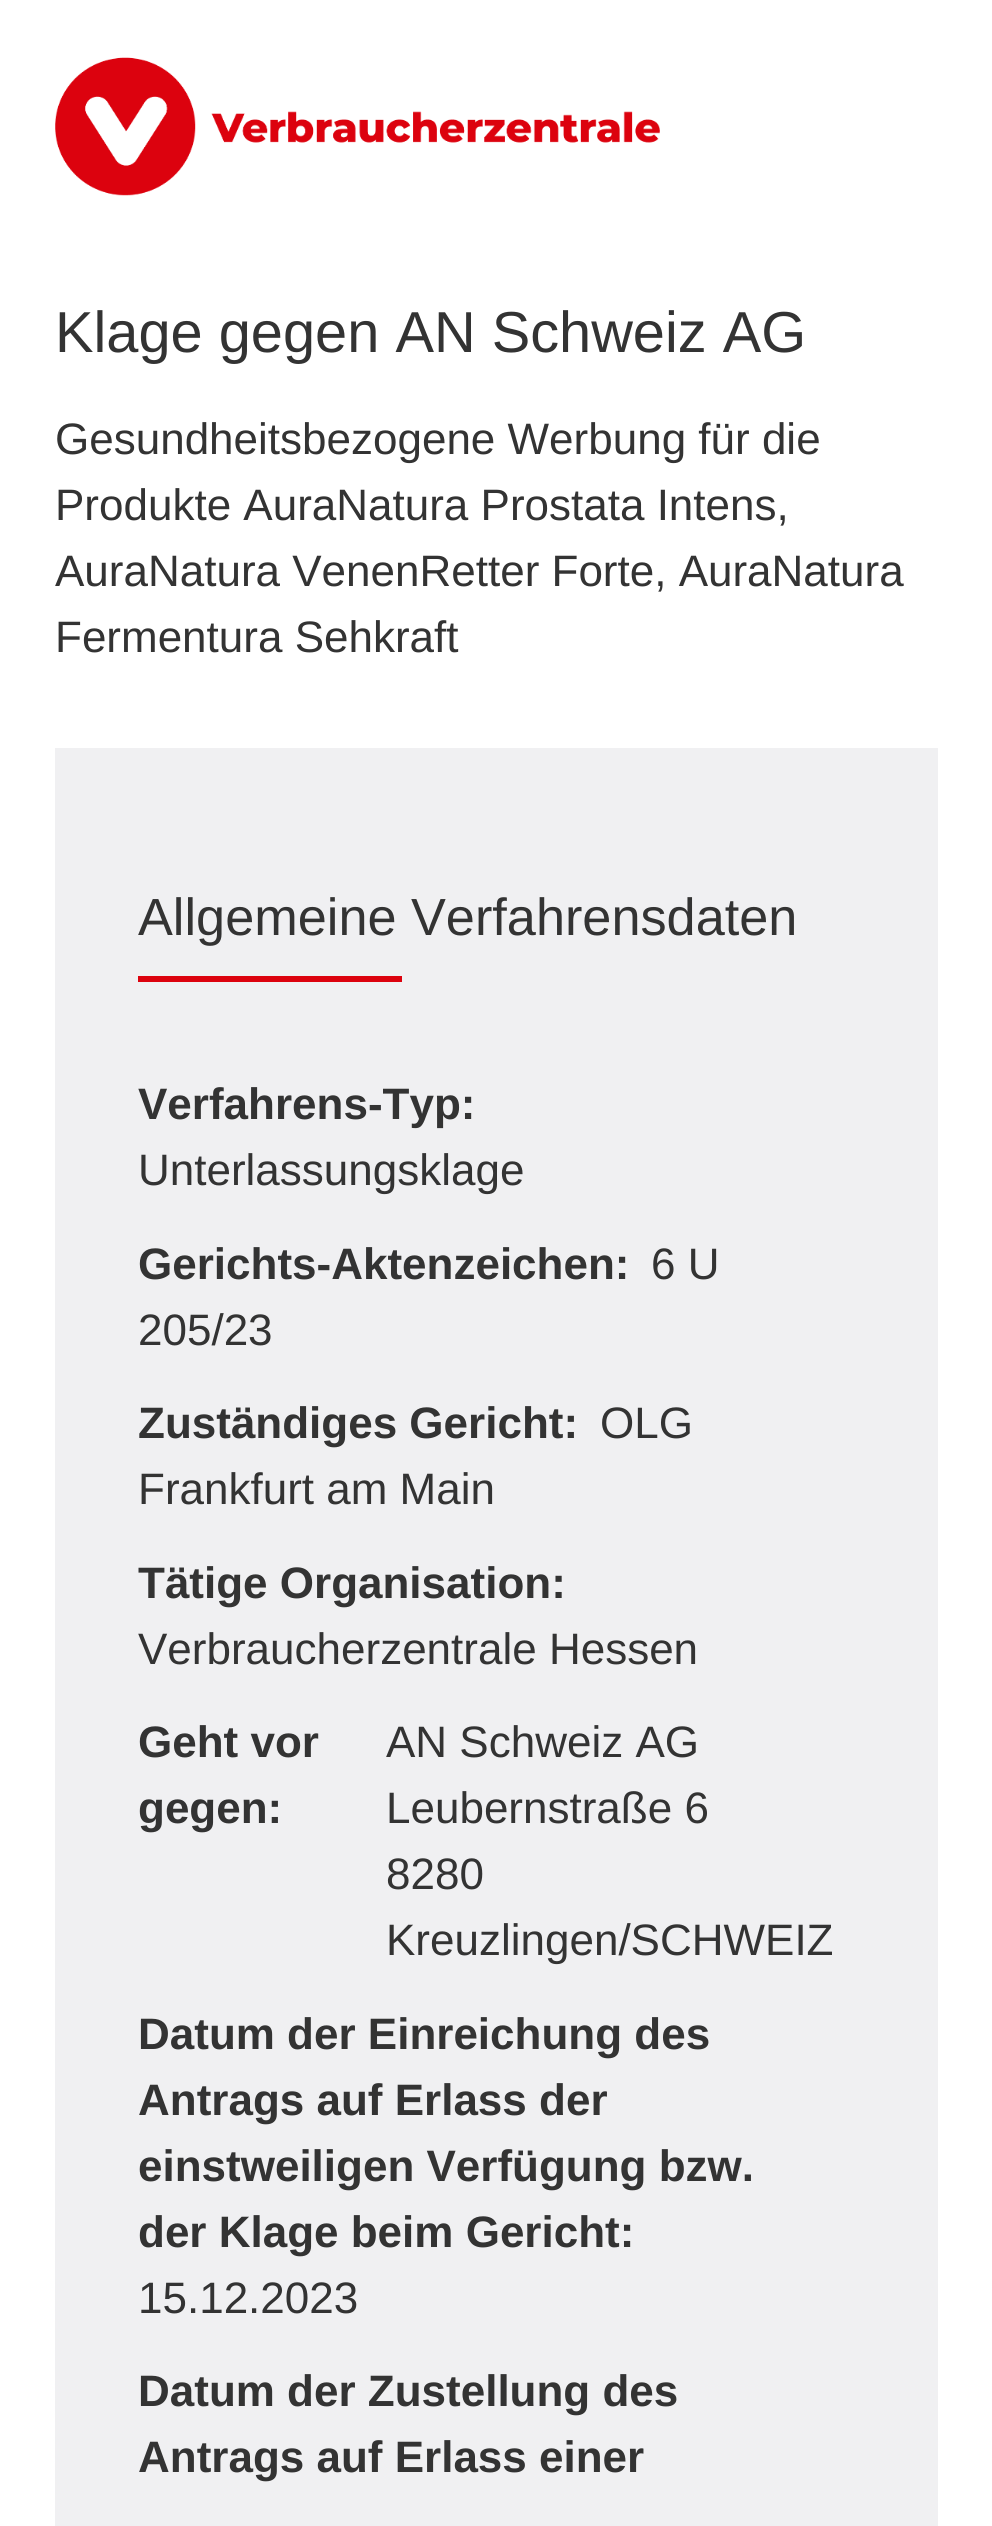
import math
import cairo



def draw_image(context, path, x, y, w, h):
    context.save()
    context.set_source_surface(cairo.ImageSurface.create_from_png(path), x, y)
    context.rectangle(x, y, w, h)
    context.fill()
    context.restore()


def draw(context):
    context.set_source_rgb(1, 1, 1)
    context.paint()
    draw_image(context, "images/1.png", 55, 57, 605, 139)
    context.set_source_rgb(240 / 255, 240 / 255, 242 / 255)
    context.rectangle(55, 748, 883, 1778)
    context.fill()
    context.set_source_rgb(220 / 255, 2 / 255, 14 / 255)
    context.rectangle(138, 976, 264, 6)
    context.fill()
    context.select_font_face("Liberation Sans")
    context.set_font_size(57.75)
    context.set_source_rgb(51 / 255, 51 / 255, 51 / 255)
    context.move_to(55, 352)
    context.show_text("Klage gegen AN Schweiz AG")
    context.set_font_size(44)
    context.move_to(55, 454)
    context.show_text("Gesundheitsbezogene Werbung für die")
    context.move_to(55, 520)
    context.show_text("Produkte AuraNatura Prostata Intens,")
    context.move_to(55, 586)
    context.show_text("AuraNatura VenenRetter Forte, AuraNatura")
    context.move_to(55, 652)
    context.show_text("Fermentura Sehkraft")
    context.set_font_size(52.25)
    context.move_to(138, 935)
    context.show_text("Allgemeine Verfahrensdaten")
    context.select_font_face("Liberation Sans", cairo.FontSlant.NORMAL, cairo.FontWeight.BOLD)
    context.set_font_size(44)
    context.move_to(138, 1119)
    context.show_text("Verfahrens-Typ:")
    context.select_font_face("Liberation Sans")
    context.move_to(138, 1185)
    context.show_text("Unterlassungsklage")
    context.select_font_face("Liberation Sans", cairo.FontSlant.NORMAL, cairo.FontWeight.BOLD)
    context.move_to(138, 1279)
    context.show_text("Gerichts-Aktenzeichen:")
    context.select_font_face("Liberation Sans")
    context.move_to(651, 1279)
    context.show_text("6 U")
    context.move_to(138, 1345)
    context.show_text("205/23")
    context.select_font_face("Liberation Sans", cairo.FontSlant.NORMAL, cairo.FontWeight.BOLD)
    context.move_to(138, 1438)
    context.show_text("Zuständiges Gericht:")
    context.select_font_face("Liberation Sans")
    context.move_to(600, 1438)
    context.show_text("OLG")
    context.move_to(138, 1504)
    context.show_text("Frankfurt am Main")
    context.select_font_face("Liberation Sans", cairo.FontSlant.NORMAL, cairo.FontWeight.BOLD)
    context.move_to(138, 1598)
    context.show_text("Tätige Organisation:")
    context.select_font_face("Liberation Sans")
    context.move_to(138, 1664)
    context.show_text("Verbraucherzentrale Hessen")
    context.select_font_face("Liberation Sans", cairo.FontSlant.NORMAL, cairo.FontWeight.BOLD)
    context.move_to(138, 1757)
    context.show_text("Geht vor")
    context.move_to(138, 1823)
    context.show_text("gegen:")
    context.select_font_face("Liberation Sans")
    context.move_to(386, 1757)
    context.show_text("AN Schweiz AG")
    context.move_to(386, 1823)
    context.show_text("Leubernstraße 6")
    context.move_to(386, 1889)
    context.show_text("8280")
    context.move_to(386, 1955)
    context.show_text("Kreuzlingen/SCHWEIZ")
    context.select_font_face("Liberation Sans", cairo.FontSlant.NORMAL, cairo.FontWeight.BOLD)
    context.move_to(138, 2049)
    context.show_text("Datum der Einreichung des")
    context.move_to(138, 2115)
    context.show_text("Antrags auf Erlass der")
    context.move_to(138, 2181)
    context.show_text("einstweiligen Verfügung bzw.")
    context.move_to(138, 2247)
    context.show_text("der Klage beim Gericht:")
    context.select_font_face("Liberation Sans")
    context.move_to(138, 2313)
    context.show_text("15.12.2023")
    context.select_font_face("Liberation Sans", cairo.FontSlant.NORMAL, cairo.FontWeight.BOLD)
    context.move_to(138, 2406)
    context.show_text("Datum der Zustellung des")
    context.move_to(138, 2472)
    context.show_text("Antrags auf Erlass einer")


surface = cairo.ImageSurface(cairo.Format.RGB24, 992, 2526)
context = cairo.Context(surface)
options = cairo.FontOptions()
options.set_hint_metrics(cairo.HintMetrics.OFF)
options.set_hint_style(cairo.HintStyle.NONE)
context.set_font_options(options)
context.set_miter_limit(4)
draw(context)
surface.write_to_png("out.png")
